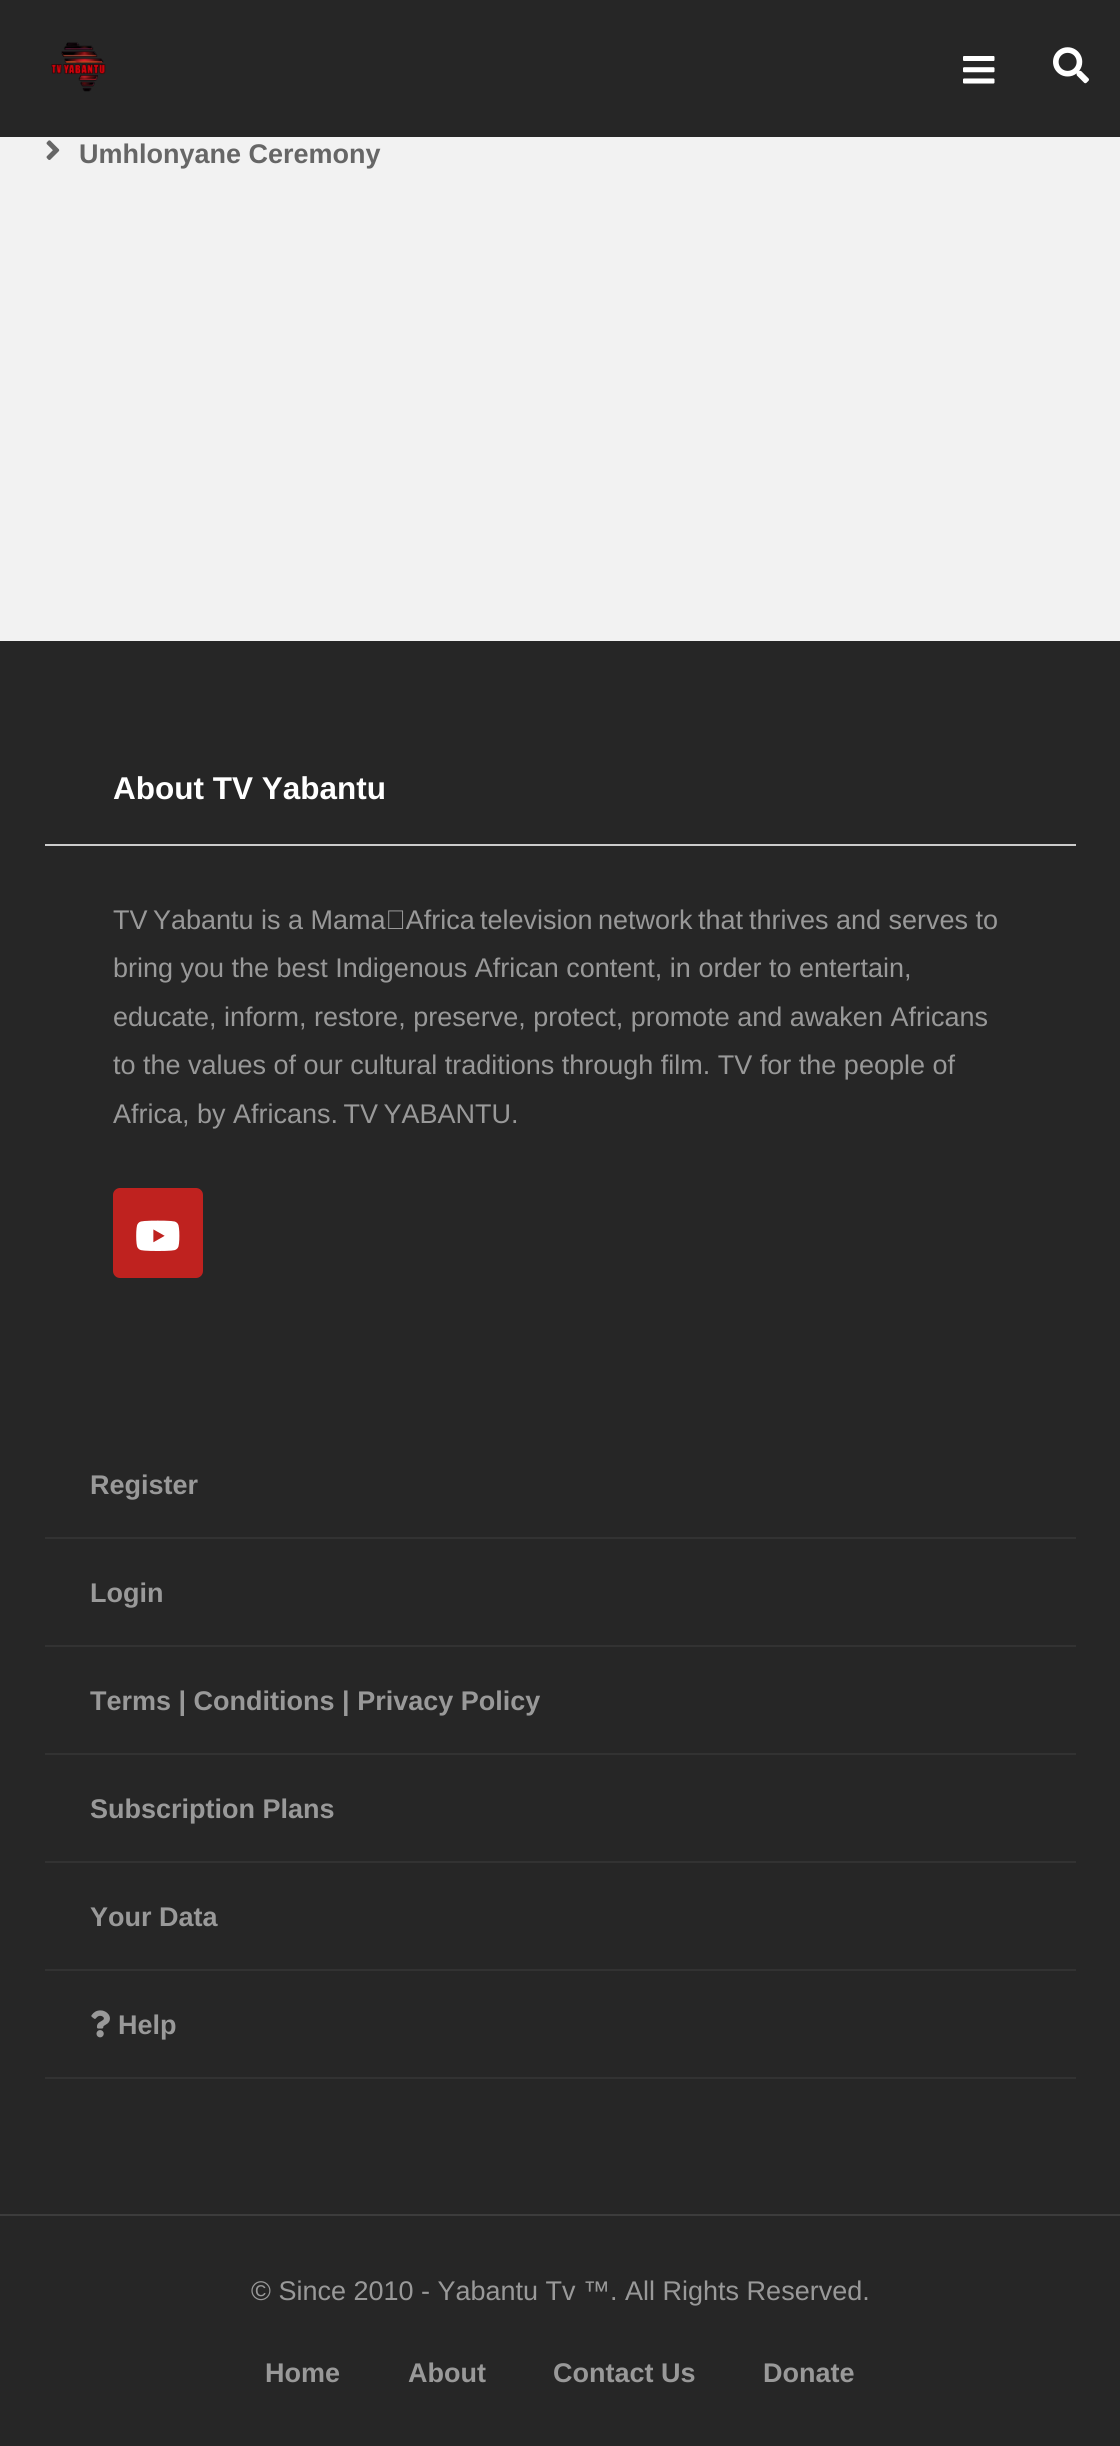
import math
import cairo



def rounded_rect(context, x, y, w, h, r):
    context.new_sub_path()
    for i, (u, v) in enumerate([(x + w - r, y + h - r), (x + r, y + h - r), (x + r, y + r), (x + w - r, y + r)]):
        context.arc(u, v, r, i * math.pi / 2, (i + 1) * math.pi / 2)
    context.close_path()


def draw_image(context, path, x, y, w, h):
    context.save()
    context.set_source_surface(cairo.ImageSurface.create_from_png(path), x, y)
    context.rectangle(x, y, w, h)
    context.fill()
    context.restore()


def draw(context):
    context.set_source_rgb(242 / 255, 242 / 255, 242 / 255)
    context.paint()
    context.set_source_rgb(38 / 255, 38 / 255, 38 / 255)
    context.rectangle(0, 0, 1120, 137)
    context.fill()
    draw_image(context, "images/1.png", 51, 42, 55, 50)
    draw_image(context, "images/2.png", 963, 56, 32, 28)
    draw_image(context, "images/3.png", 1053, 47, 36, 37)
    draw_image(context, "images/4.png", 46, 140, 14, 20)
    context.rectangle(0, 641, 1120, 1805)
    context.fill()
    context.set_source_rgb(204 / 255, 204 / 255, 204 / 255)
    context.rectangle(45, 844, 1031, 2)
    context.fill()
    context.set_source_rgb(191 / 255, 34 / 255, 31 / 255)
    rounded_rect(context, 113, 1188, 90, 90, 7)
    context.fill()
    draw_image(context, "images/5.png", 136, 1220, 44, 31)
    context.set_source_rgb(50 / 255, 50 / 255, 50 / 255)
    context.rectangle(45, 1537, 1031, 2)
    context.fill()
    context.rectangle(45, 1645, 1031, 2)
    context.fill()
    context.rectangle(45, 1753, 1031, 2)
    context.fill()
    context.rectangle(45, 1861, 1031, 2)
    context.fill()
    context.rectangle(45, 1969, 1031, 2)
    context.fill()
    context.rectangle(45, 2077, 1031, 2)
    context.fill()
    draw_image(context, "images/6.png", 91, 2010, 19, 28)
    context.set_source_rgb(60 / 255, 60 / 255, 60 / 255)
    context.rectangle(0, 2214, 1120, 2)
    context.fill()
    context.select_font_face("Liberation Sans", cairo.FontSlant.NORMAL, cairo.FontWeight.BOLD)
    context.set_font_size(27)
    context.set_source_rgb(102 / 255, 102 / 255, 102 / 255)
    context.move_to(79, 163)
    context.show_text("Umhlonyane Ceremony")
    context.set_font_size(31.5)
    context.set_source_rgb(1, 1, 1)
    context.move_to(113, 799)
    context.show_text("About TV Yabantu")
    context.select_font_face("Liberation Sans")
    context.set_font_size(27)
    context.set_source_rgb(153 / 255, 153 / 255, 153 / 255)
    context.move_to(113, 929)
    context.show_text("TV Yabantu is a Mama‑Africa")
    context.move_to(480, 929)
    context.show_text("television")
    context.move_to(598, 929)
    context.show_text("network")
    context.move_to(698, 929)
    context.show_text("that")
    context.move_to(749, 929)
    context.show_text("thrives and serves to")
    context.move_to(113, 977)
    context.show_text("bring you the best Indigenous African content, in order to entertain,")
    context.move_to(113, 1026)
    context.show_text("educate, inform, restore, preserve, protect, promote and awaken Africans")
    context.move_to(113, 1074)
    context.show_text("to the values of our cultural traditions through film. TV for the people of")
    context.move_to(113, 1123)
    context.show_text("Africa, by Africans. TV YABANTU.")
    context.select_font_face("Liberation Sans", cairo.FontSlant.NORMAL, cairo.FontWeight.BOLD)
    context.move_to(90, 1494)
    context.show_text("Register")
    context.move_to(90, 1602)
    context.show_text("Login")
    context.move_to(90, 1710)
    context.show_text("Terms | Conditions | Privacy Policy")
    context.move_to(90, 1818)
    context.show_text("Subscription Plans")
    context.move_to(90, 1926)
    context.show_text("Your Data")
    context.move_to(118, 2034)
    context.show_text("Help")
    context.select_font_face("Liberation Sans")
    context.move_to(251, 2300)
    context.show_text("© Since 2010 - Yabantu Tv ™. All Rights Reserved.")
    context.select_font_face("Liberation Sans", cairo.FontSlant.NORMAL, cairo.FontWeight.BOLD)
    context.move_to(265, 2382)
    context.show_text("Home")
    context.move_to(408, 2382)
    context.show_text("About")
    context.move_to(553, 2382)
    context.show_text("Contact Us")
    context.move_to(763, 2382)
    context.show_text("Donate")


surface = cairo.ImageSurface(cairo.Format.RGB24, 1120, 2446)
context = cairo.Context(surface)
options = cairo.FontOptions()
options.set_hint_metrics(cairo.HintMetrics.OFF)
options.set_hint_style(cairo.HintStyle.NONE)
context.set_font_options(options)
context.set_miter_limit(4)
draw(context)
surface.write_to_png("out.png")
